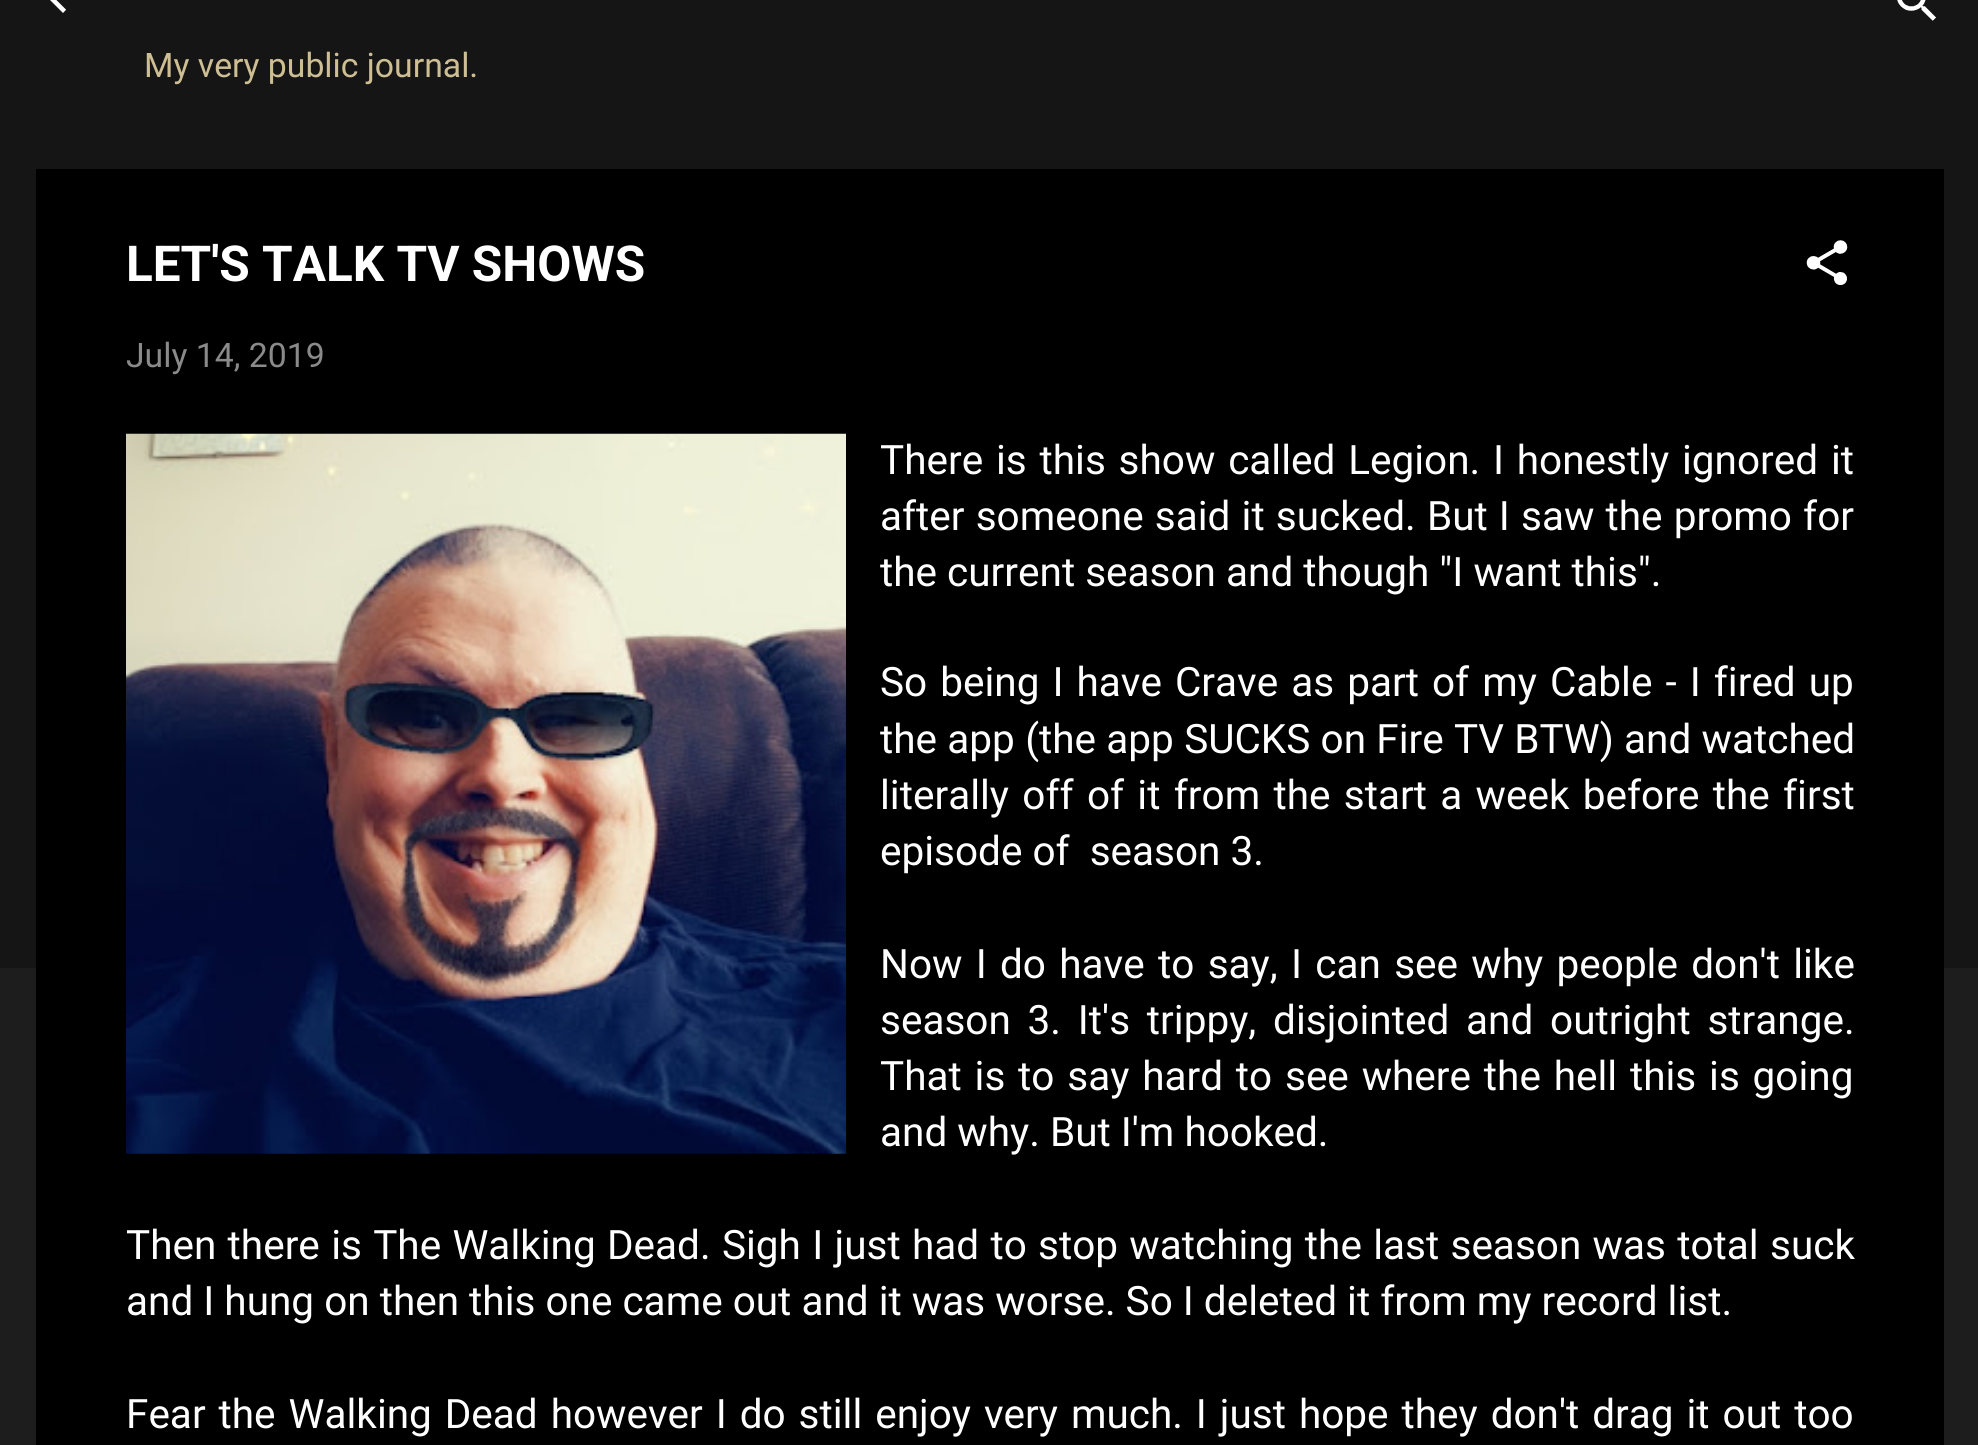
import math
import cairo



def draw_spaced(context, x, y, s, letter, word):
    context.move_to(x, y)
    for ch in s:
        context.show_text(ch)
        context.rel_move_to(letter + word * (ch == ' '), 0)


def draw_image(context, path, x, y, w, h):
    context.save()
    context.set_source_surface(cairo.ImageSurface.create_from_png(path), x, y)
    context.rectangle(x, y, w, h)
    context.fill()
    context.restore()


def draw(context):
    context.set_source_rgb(29 / 255, 29 / 255, 29 / 255)
    context.paint()
    context.set_source_rgb(21 / 255, 21 / 255, 21 / 255)
    context.rectangle(0, 0, 1978, 968)
    context.fill()
    draw_image(context, "images/1.png", 50, 0, 16, 13)
    draw_image(context, "images/2.png", 1897, 0, 39, 21)
    context.set_source_rgb(0, 0, 0)
    context.rectangle(36, 169, 1908, 1276)
    context.fill()
    draw_image(context, "images/3.png", 1806, 240, 42, 45)
    draw_image(context, "images/4.png", 126, 433, 720, 721)
    context.select_font_face("Roboto")
    context.set_font_size(33.75)
    context.set_source_rgb(206 / 255, 190 / 255, 147 / 255)
    context.move_to(144, 77)
    context.show_text("My very public journal.")
    context.select_font_face("Roboto", cairo.FontSlant.NORMAL, cairo.FontWeight.BOLD)
    context.set_font_size(49.5)
    context.set_source_rgb(1, 1, 1)
    context.move_to(126, 281)
    context.show_text("LET'S TALK TV SHOWS")
    context.select_font_face("Roboto")
    context.set_font_size(33.75)
    context.set_source_rgb(138 / 255, 138 / 255, 138 / 255)
    context.move_to(126, 367)
    context.show_text("July 14, 2019")
    context.set_font_size(40.5)
    context.set_source_rgb(1, 1, 1)
    draw_spaced(context, 880, 474, "There is this show called Legion. I honestly ignored it", 0, 2.75)
    draw_spaced(context, 880, 530, "after someone said it sucked. But I saw the promo for", 0, 1.1)
    context.move_to(880, 586)
    context.show_text("the current season and though \"I want this\".")
    draw_spaced(context, 880, 696, "So being I have Crave as part of my Cable - I fired up", 0, 3)
    draw_spaced(context, 880, 753, "the app (the app SUCKS on Fire TV BTW) and watched", 0, 0.25)
    draw_spaced(context, 880, 809, "literally off of it from the start a week before the first", 0, 3.25)
    context.move_to(880, 865)
    context.show_text("episode of  season 3.")
    draw_spaced(context, 880, 978, "Now I do have to say, I can see why people don't like", 0, 3.25)
    draw_spaced(context, 880, 1034, "season 3. It's trippy, disjointed and outright strange.", 0, 6.75)
    draw_spaced(context, 880, 1090, "That is to say hard to see where the hell this is going", 0, 2.75)
    context.move_to(880, 1146)
    context.show_text("and why. But I'm hooked.")
    draw_spaced(context, 126, 1259, "Then there is The Walking Dead. Sigh I just had to stop watching the last season was total suck", 0, 1.25)
    context.move_to(126, 1315)
    context.show_text("and I hung on then this one came out and it was worse. So I deleted it from my record list.")
    draw_spaced(context, 126, 1428, "Fear the Walking Dead however I do still enjoy very much. I just hope they don't drag it out too", 0, 2.9)


surface = cairo.ImageSurface(cairo.Format.RGB24, 1978, 1445)
context = cairo.Context(surface)
options = cairo.FontOptions()
options.set_hint_metrics(cairo.HintMetrics.OFF)
options.set_hint_style(cairo.HintStyle.NONE)
context.set_font_options(options)
context.set_miter_limit(4)
draw(context)
surface.write_to_png("out.png")
